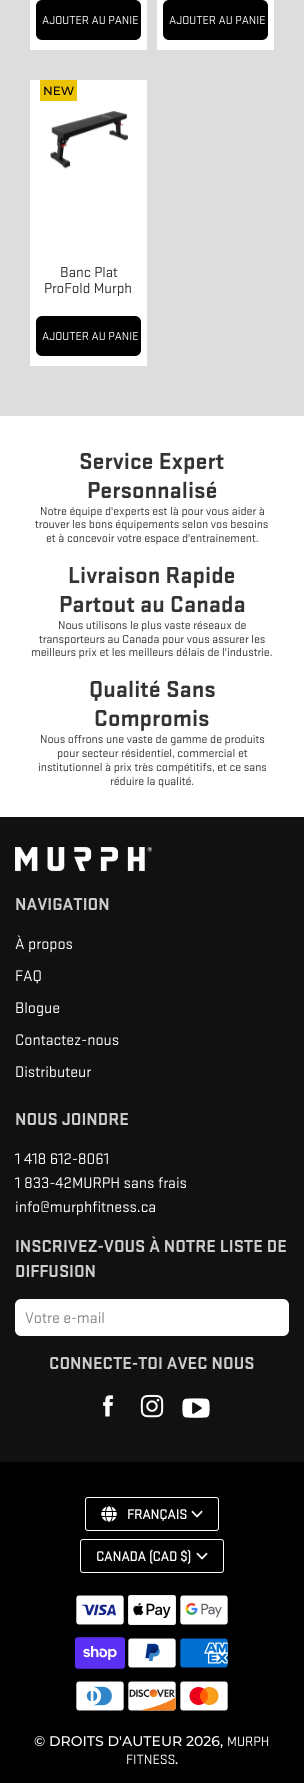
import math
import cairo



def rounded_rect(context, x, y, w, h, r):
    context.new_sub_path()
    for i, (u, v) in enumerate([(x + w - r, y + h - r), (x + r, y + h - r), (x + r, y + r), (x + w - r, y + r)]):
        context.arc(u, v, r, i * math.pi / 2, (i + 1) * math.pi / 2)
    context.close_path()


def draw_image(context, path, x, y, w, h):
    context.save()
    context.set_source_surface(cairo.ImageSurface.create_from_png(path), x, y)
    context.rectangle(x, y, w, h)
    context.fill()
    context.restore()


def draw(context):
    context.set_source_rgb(1, 1, 1)
    context.paint()
    context.set_source_rgb(221 / 255, 221 / 255, 221 / 255)
    context.rectangle(0, 0, 304, 416)
    context.fill()
    context.set_source_rgb(1, 1, 1)
    context.rectangle(30, 0, 117, 50)
    context.fill()
    context.set_source_rgb(0, 0, 0)
    rounded_rect(context, 36, 0, 105, 40, 6)
    context.fill()
    context.set_source_rgb(1, 1, 1)
    context.rectangle(157, 0, 117, 50)
    context.fill()
    context.set_source_rgb(0, 0, 0)
    rounded_rect(context, 163, 0, 105, 40, 6)
    context.fill()
    context.set_source_rgb(1, 1, 1)
    context.rectangle(30, 80, 117, 286)
    context.fill()
    context.set_source_rgb(237 / 255, 195 / 255, 6 / 255)
    context.rectangle(40, 80, 37, 21)
    context.fill()
    draw_image(context, "images/1.png", 50, 111, 78, 58)
    context.set_source_rgb(0, 0, 0)
    rounded_rect(context, 36, 316, 105, 40, 6)
    context.fill()
    context.set_source_rgb(17 / 255, 17 / 255, 17 / 255)
    context.rectangle(0, 817, 304, 645)
    context.fill()
    draw_image(context, "images/2.png", 15, 847, 137, 25)
    context.set_source_rgb(1, 1, 1)
    rounded_rect(context, 15, 1299, 274, 37, 6)
    context.fill()
    draw_image(context, "images/3.png", 103, 1395, 10, 22)
    draw_image(context, "images/4.png", 140, 1394, 24, 24)
    draw_image(context, "images/5.png", 182, 1398, 28, 20)
    context.set_source_rgb(0, 0, 0)
    context.rectangle(0, 1462, 304, 321)
    context.fill()
    rounded_rect(context, 85.5, 1497.5, 133, 33, 2.5)
    context.set_source_rgb(1, 1, 1)
    context.set_line_width(1)
    context.stroke()
    draw_image(context, "images/6.png", 101, 1506, 16, 16)
    draw_image(context, "images/7.png", 191, 1510, 12, 8)
    rounded_rect(context, 80.5, 1539.5, 143, 33, 2.5)
    context.stroke()
    draw_image(context, "images/7.png", 196, 1552, 12, 8)
    draw_image(context, "images/8.png", 76, 1595, 48, 30)
    draw_image(context, "images/9.png", 128, 1595, 48, 30)
    draw_image(context, "images/10.png", 180, 1595, 48, 30)
    draw_image(context, "images/11.png", 75, 1637, 50, 32)
    draw_image(context, "images/12.png", 128, 1638, 48, 30)
    draw_image(context, "images/13.png", 180, 1638, 48, 30)
    draw_image(context, "images/14.png", 76, 1681, 48, 30)
    draw_image(context, "images/15.png", 128, 1681, 48, 30)
    draw_image(context, "images/16.png", 180, 1681, 48, 30)
    context.select_font_face("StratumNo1")
    context.set_font_size(12)
    context.move_to(42, 24)
    context.show_text("AJOUTER AU PANIE")
    context.move_to(169, 24)
    context.show_text("AJOUTER AU PANIE")
    context.select_font_face("Montserrat Medium")
    context.set_source_rgb(0, 0, 0)
    context.move_to(43, 95)
    context.show_text("NEW")
    context.select_font_face("StratumNo1")
    context.set_font_size(15)
    context.set_source_rgb(51 / 255, 51 / 255, 51 / 255)
    context.move_to(60, 277)
    context.show_text("Banc Plat")
    context.move_to(44, 293)
    context.show_text("ProFold Murph")
    context.set_font_size(12)
    context.set_source_rgb(1, 1, 1)
    context.move_to(42, 340)
    context.show_text("AJOUTER AU PANIE")
    context.select_font_face("StratumNo1", cairo.FontSlant.NORMAL, cairo.FontWeight.BOLD)
    context.set_font_size(24)
    context.set_source_rgb(51 / 255, 51 / 255, 51 / 255)
    context.move_to(79, 469)
    context.show_text("Service Expert")
    context.move_to(87, 498)
    context.show_text("Personnalisé")
    context.select_font_face("StratumNo1")
    context.set_font_size(12)
    context.move_to(40, 515)
    context.show_text("Notre équipe d'experts est là pour vous aider à")
    context.move_to(35, 528)
    context.show_text("trouver les bons équipements selon vos besoins")
    context.move_to(46, 542)
    context.show_text("et à concevoir votre espace d'entrainement.")
    context.select_font_face("StratumNo1", cairo.FontSlant.NORMAL, cairo.FontWeight.BOLD)
    context.set_font_size(24)
    context.move_to(68, 583)
    context.show_text("Livraison Rapide")
    context.move_to(59, 612)
    context.show_text("Partout au Canada")
    context.select_font_face("StratumNo1")
    context.set_font_size(12)
    context.move_to(58, 629)
    context.show_text("Nous utilisons le plus vaste réseaux de")
    context.move_to(39, 643)
    context.show_text("transporteurs au Canada pour vous assurer les")
    context.move_to(31, 656)
    context.show_text("meilleurs prix et les meilleurs délais de l'industrie.")
    context.select_font_face("StratumNo1", cairo.FontSlant.NORMAL, cairo.FontWeight.BOLD)
    context.set_font_size(24)
    context.move_to(89, 697)
    context.show_text("Qualité Sans")
    context.move_to(94, 726)
    context.show_text("Compromis")
    context.select_font_face("StratumNo1")
    context.set_font_size(12)
    context.move_to(40, 743)
    context.show_text("Nous offrons une vaste de gamme de produits")
    context.move_to(57, 757)
    context.show_text("pour secteur résidentiel, commercial et")
    context.move_to(38, 771)
    context.show_text("institutionnel à prix très compétitifs, et ce sans")
    context.move_to(110, 785)
    context.show_text("réduire la qualité.")
    context.select_font_face("StratumNo1", cairo.FontSlant.NORMAL, cairo.FontWeight.BOLD)
    context.set_font_size(18)
    context.set_source_rgb(204 / 255, 204 / 255, 204 / 255)
    context.move_to(15, 910)
    context.show_text("NAVIGATION")
    context.select_font_face("StratumNo1")
    context.set_font_size(16)
    context.set_source_rgb(1, 1, 1)
    context.move_to(15, 949)
    context.show_text("À propos")
    context.move_to(15, 981)
    context.show_text("FAQ")
    context.move_to(15, 1013)
    context.show_text("Blogue")
    context.move_to(15, 1045)
    context.show_text("Contactez-nous")
    context.move_to(15, 1077)
    context.show_text("Distributeur")
    context.select_font_face("StratumNo1", cairo.FontSlant.NORMAL, cairo.FontWeight.BOLD)
    context.set_font_size(18)
    context.set_source_rgb(204 / 255, 204 / 255, 204 / 255)
    context.move_to(15, 1125)
    context.show_text("NOUS JOINDRE")
    context.select_font_face("StratumNo1")
    context.set_font_size(16)
    context.set_source_rgb(1, 1, 1)
    context.move_to(15, 1164)
    context.show_text("1 418 612-8061")
    context.move_to(15, 1188)
    context.show_text("1 833-42MURPH sans frais")
    context.move_to(15, 1212)
    context.show_text("info@murphfitness.ca")
    context.select_font_face("StratumNo1", cairo.FontSlant.NORMAL, cairo.FontWeight.BOLD)
    context.set_font_size(18)
    context.set_source_rgb(204 / 255, 204 / 255, 204 / 255)
    context.move_to(15, 1252)
    context.show_text("INSCRIVEZ-VOUS À NOTRE LISTE DE")
    context.move_to(15, 1277)
    context.show_text("DIFFUSION")
    context.select_font_face("StratumNo1")
    context.set_font_size(16)
    context.set_source_rgb(133 / 255, 133 / 255, 133 / 255)
    context.move_to(25, 1323)
    context.show_text("Votre e-mail")
    context.select_font_face("StratumNo1", cairo.FontSlant.NORMAL, cairo.FontWeight.BOLD)
    context.set_font_size(18)
    context.set_source_rgb(204 / 255, 204 / 255, 204 / 255)
    context.move_to(49, 1369)
    context.show_text("CONNECTE-TOI AVEC NOUS")
    context.select_font_face("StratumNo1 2", cairo.FontSlant.NORMAL, cairo.FontWeight.BOLD)
    context.set_font_size(14)
    context.set_source_rgb(1, 1, 1)
    context.move_to(127, 1519)
    context.show_text("FRANÇAIS")
    context.move_to(96, 1561)
    context.show_text("CANADA (CAD $)")
    context.select_font_face("Montserrat Medium")
    context.move_to(34, 1746)
    context.show_text("© DROITS D'AUTEUR 2026,")
    context.select_font_face("StratumNo1")
    context.move_to(227, 1746)
    context.show_text("MURPH")
    context.move_to(126, 1764)
    context.show_text("FITNESS")
    context.select_font_face("Montserrat Medium")
    context.move_to(175, 1764)
    context.show_text(".")


surface = cairo.ImageSurface(cairo.Format.RGB24, 304, 1783)
context = cairo.Context(surface)
options = cairo.FontOptions()
options.set_hint_metrics(cairo.HintMetrics.OFF)
options.set_hint_style(cairo.HintStyle.NONE)
context.set_font_options(options)
context.set_miter_limit(4)
draw(context)
surface.write_to_png("out.png")
